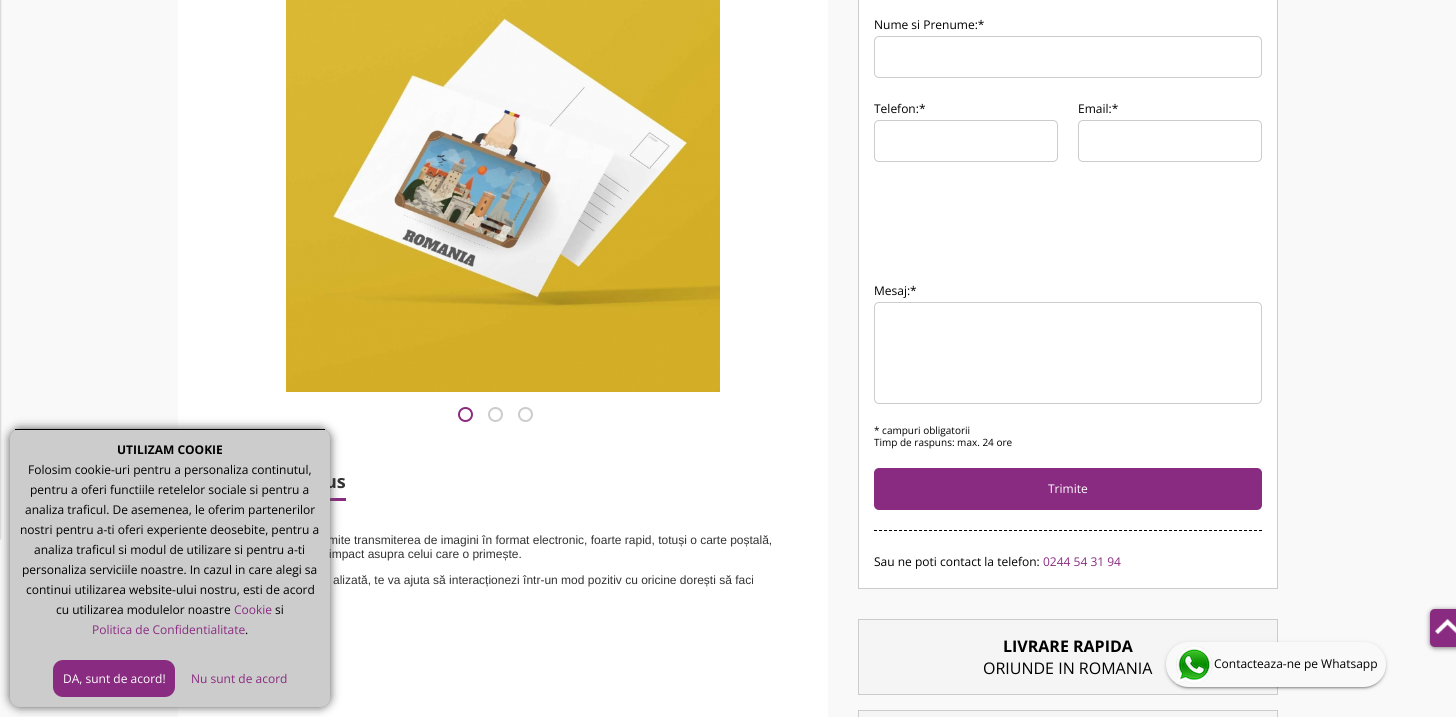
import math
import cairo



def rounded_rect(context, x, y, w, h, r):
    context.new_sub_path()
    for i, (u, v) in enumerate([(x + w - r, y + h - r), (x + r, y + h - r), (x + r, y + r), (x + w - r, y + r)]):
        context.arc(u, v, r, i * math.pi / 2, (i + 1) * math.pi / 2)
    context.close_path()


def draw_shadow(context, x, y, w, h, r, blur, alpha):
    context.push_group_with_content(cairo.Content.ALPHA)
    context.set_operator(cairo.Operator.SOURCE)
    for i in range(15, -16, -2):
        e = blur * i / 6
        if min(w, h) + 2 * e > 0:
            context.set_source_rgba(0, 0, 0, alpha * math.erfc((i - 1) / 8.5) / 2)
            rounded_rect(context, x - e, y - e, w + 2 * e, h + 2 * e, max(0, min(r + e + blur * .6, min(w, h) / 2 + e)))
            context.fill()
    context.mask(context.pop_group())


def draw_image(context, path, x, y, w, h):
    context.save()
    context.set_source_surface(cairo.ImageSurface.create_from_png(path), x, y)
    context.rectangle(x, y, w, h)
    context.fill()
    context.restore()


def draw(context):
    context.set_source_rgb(249 / 255, 249 / 255, 249 / 255)
    context.paint()
    context.set_source_rgb(0, 0, 0)
    draw_shadow(context, -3, -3, 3, 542, 0, 1, 0.24)
    draw_shadow(context, -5, -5, 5, 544, 0, 1.5, 0.12)
    context.set_source_rgb(1, 1, 1)
    context.rectangle(178, 0, 650, 717)
    context.fill()
    context.set_source_rgb(137 / 255, 43 / 255, 128 / 255)
    context.rectangle(330, 498, 16, 3)
    context.fill()
    context.set_source_rgb(85 / 255, 85 / 255, 85 / 255)
    draw_shadow(context, 10, 429, 320, 278, 10, 5, 1)
    draw_image(context, "images/1.png", 286, 0, 434, 392)
    context.arc(465.5, 414.5, 6.5, 0, 2 * math.pi)
    context.set_source_rgb(137 / 255, 43 / 255, 128 / 255)
    context.stroke()
    context.arc(495.5, 414.5, 6.5, 0, 2 * math.pi)
    context.set_source_rgb(204 / 255, 204 / 255, 204 / 255)
    context.stroke()
    context.arc(525.5, 414.5, 6.5, 0, 2 * math.pi)
    context.stroke()
    context.set_source_rgb(1, 1, 1)
    context.rectangle(858.5, -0.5, 419, 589)
    context.fill_preserve()
    context.set_source_rgb(204 / 255, 204 / 255, 204 / 255)
    context.set_line_width(1)
    context.stroke()
    rounded_rect(context, 874.5, 36.5, 387, 41, 4.5)
    context.stroke()
    rounded_rect(context, 874.5, 120.5, 183, 41, 4.5)
    context.stroke()
    rounded_rect(context, 1078.5, 120.5, 183, 41, 4.5)
    context.stroke()
    rounded_rect(context, 874.5, 302.5, 387, 101, 4.5)
    context.stroke()
    context.set_source_rgb(137 / 255, 43 / 255, 128 / 255)
    rounded_rect(context, 874, 468, 388, 42, 5)
    context.fill()
    context.new_path()
    context.move_to(874, 530.5)
    context.line_to(1262, 530.5)
    context.set_source_rgb(0, 0, 0)
    context.set_dash([3, 2])
    context.stroke()
    context.set_source_rgb(245 / 255, 245 / 255, 245 / 255)
    context.rectangle(858.5, 619.5, 419, 75)
    context.fill_preserve()
    context.set_source_rgb(204 / 255, 204 / 255, 204 / 255)
    context.set_dash([])
    context.stroke()
    context.set_source_rgb(245 / 255, 245 / 255, 245 / 255)
    context.rectangle(858.5, 710.5, 419, 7)
    context.fill_preserve()
    context.set_source_rgb(204 / 255, 204 / 255, 204 / 255)
    context.stroke()
    context.set_source_rgb(0, 0, 0)
    draw_shadow(context, 1430, 610, 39, 38, 5, 2.5, 0.5)
    context.set_source_rgb(137 / 255, 43 / 255, 128 / 255)
    context.new_path()
    context.move_to(1435, 609)
    context.line_to(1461, 609)
    context.line_to(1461, 647)
    context.line_to(1435, 647)
    context.curve_to(1432, 647, 1430, 645, 1430, 642)
    context.line_to(1430, 614)
    context.curve_to(1430, 611, 1432, 609, 1435, 609)
    context.close_path()
    context.fill()
    draw_image(context, "images/2.png", 1435, 618, 21, 16)
    context.set_source_rgb(0, 0, 0)
    draw_shadow(context, 1168, 647, 216, 41, 20.5, 0.5, 0.2)
    draw_shadow(context, 1166, 643, 220, 45, 22.5, 2.5, 0.12)
    draw_shadow(context, 1166, 644, 220, 45, 22.5, 1, 0.14)
    context.set_source_rgb(249 / 255, 249 / 255, 249 / 255)
    rounded_rect(context, 1166, 642, 220, 45, 22.5)
    context.fill()
    draw_image(context, "images/3.png", 1175, 646, 38, 38)
    context.select_font_face("Open Sans", cairo.FontSlant.NORMAL, cairo.FontWeight.BOLD)
    context.set_font_size(18)
    context.set_source_rgb(51 / 255, 51 / 255, 51 / 255)
    context.move_to(325, 488)
    context.show_text("us")
    context.select_font_face("Liberation Sans")
    context.set_font_size(12)
    context.move_to(328, 544)
    context.show_text("mite transmiterea de imagini în format electronic, foarte rapid, totuși o carte poștală,")
    context.set_source_rgb(204 / 255, 204 / 255, 204 / 255)
    rounded_rect(context, 10, 429, 320, 278, 10)
    context.fill()
    context.select_font_face("Open Sans")
    context.set_source_rgb(137 / 255, 43 / 255, 128 / 255)
    context.move_to(191, 683)
    context.show_text("Nu sunt de acord")
    rounded_rect(context, 53, 660, 122, 37, 10)
    context.fill()
    context.set_source_rgb(1, 1, 1)
    context.move_to(63, 683)
    context.show_text("DA, sunt de acord!")
    context.set_source_rgb(0, 0, 0)
    context.move_to(245, 634)
    context.show_text(".")
    context.set_source_rgb(137 / 255, 43 / 255, 128 / 255)
    context.move_to(92, 634)
    context.show_text("Politica de Confidentialitate")
    context.set_source_rgb(0, 0, 0)
    context.move_to(275, 614)
    context.show_text("si")
    context.set_source_rgb(137 / 255, 43 / 255, 128 / 255)
    context.move_to(234, 614)
    context.show_text("Cookie")
    context.set_source_rgb(0, 0, 0)
    context.move_to(56, 614)
    context.show_text("cu utilizarea modulelor noastre")
    context.move_to(26, 594)
    context.show_text("continui utilizarea website-ului nostru, esti de acord")
    context.move_to(22, 574)
    context.show_text("personaliza serviciile noastre. In cazul in care alegi sa")
    context.move_to(34, 554)
    context.show_text("analiza traficul si modul de utilizare si pentru a-ti")
    context.move_to(20, 534)
    context.show_text("nostri pentru a-ti oferi experiente deosebite, pentru a")
    context.move_to(25, 514)
    context.show_text("analiza traficul. De asemenea, le oferim partenerilor")
    context.move_to(30, 494)
    context.show_text("pentru a oferi functiile retelelor sociale si pentru a")
    context.move_to(28, 474)
    context.show_text("Folosim cookie-uri pentru a personaliza continutul,")
    context.select_font_face("Open Sans", cairo.FontSlant.NORMAL, cairo.FontWeight.BOLD)
    context.move_to(117, 454)
    context.show_text("UTILIZAM COOKIE")
    context.rectangle(15, 429, 310, 1)
    context.fill()
    context.select_font_face("Liberation Sans")
    context.set_source_rgb(51 / 255, 51 / 255, 51 / 255)
    context.move_to(329, 558)
    context.show_text("impact asupra celui care o primește.")
    context.move_to(333, 584)
    context.show_text("alizată, te va ajuta să interacționezi într-un mod pozitiv cu oricine dorești să faci")
    context.select_font_face("Open Sans")
    context.set_source_rgb(0, 0, 0)
    context.move_to(874, 29)
    context.show_text("Nume si Prenume:*")
    context.move_to(874, 113)
    context.show_text("Telefon:*")
    context.move_to(1078, 113)
    context.show_text("Email:*")
    context.move_to(874, 295)
    context.show_text("Mesaj:*")
    context.set_font_size(10)
    context.move_to(874, 434)
    context.show_text("* campuri obligatorii")
    context.move_to(874, 446)
    context.show_text("Timp de raspuns: max. 24 ore")
    context.set_font_size(12)
    context.set_source_rgb(1, 1, 1)
    context.move_to(1048, 493)
    context.show_text("Trimite")
    context.set_source_rgb(0, 0, 0)
    context.move_to(874, 566)
    context.show_text("Sau ne poti contact la telefon:")
    context.set_source_rgb(137 / 255, 43 / 255, 128 / 255)
    context.move_to(1043, 566)
    context.show_text("0244 54 31 94")
    context.select_font_face("Open Sans", cairo.FontSlant.NORMAL, cairo.FontWeight.BOLD)
    context.set_font_size(16)
    context.set_source_rgb(0, 0, 0)
    context.move_to(1003, 652)
    context.show_text("LIVRARE RAPIDA")
    context.select_font_face("Open Sans")
    context.move_to(983, 674)
    context.show_text("ORIUNDE IN ROMANIA")
    context.set_font_size(12)
    context.move_to(1214, 668)
    context.show_text("Contacteaza-ne pe Whatsapp")


surface = cairo.ImageSurface(cairo.Format.RGB24, 1456, 717)
context = cairo.Context(surface)
options = cairo.FontOptions()
options.set_hint_metrics(cairo.HintMetrics.OFF)
options.set_hint_style(cairo.HintStyle.NONE)
context.set_font_options(options)
context.set_miter_limit(4)
draw(context)
surface.write_to_png("out.png")
